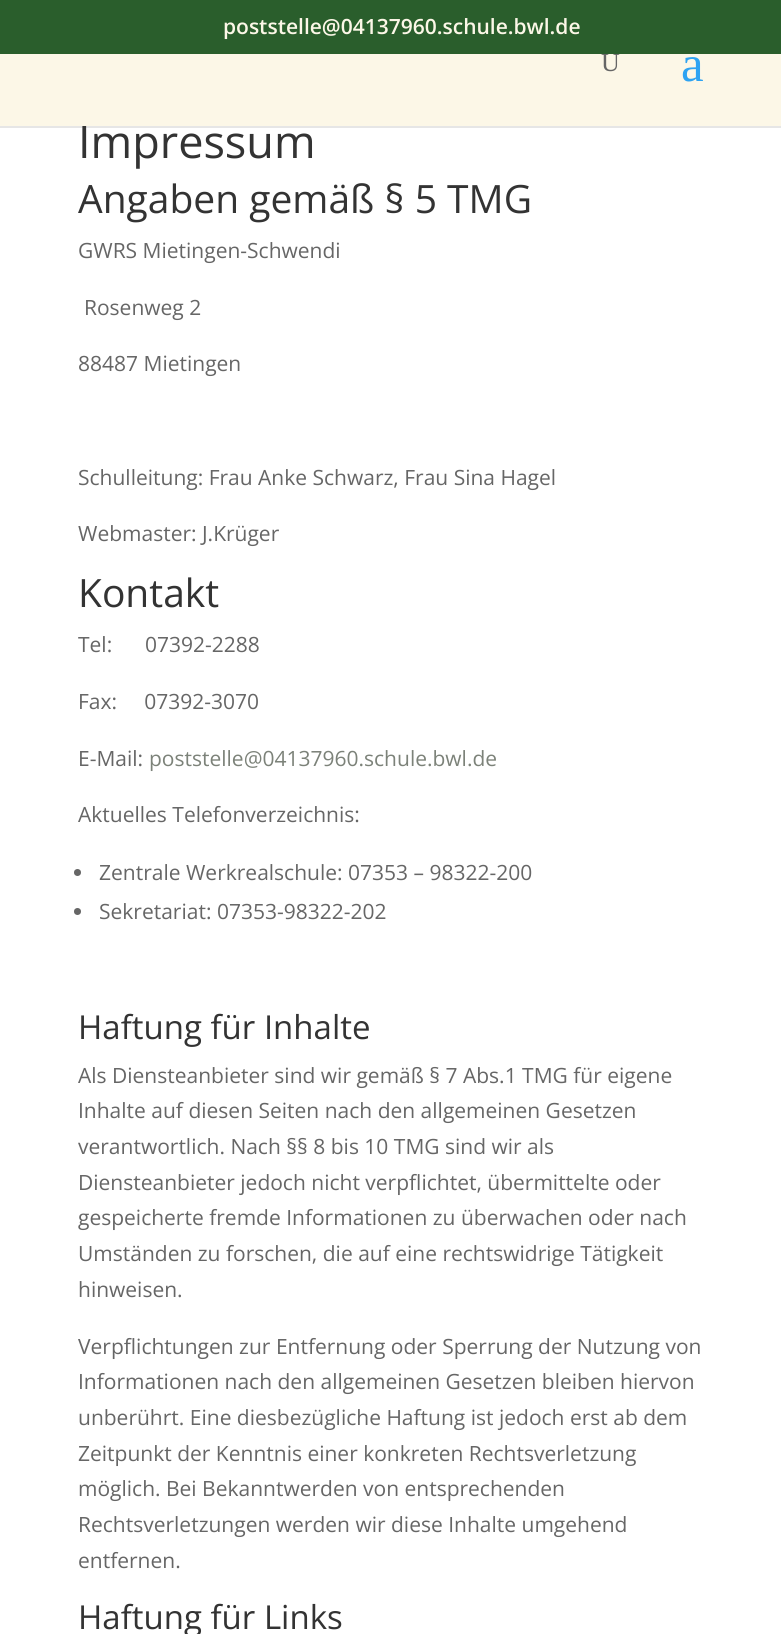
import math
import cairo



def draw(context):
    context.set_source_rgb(1, 1, 1)
    context.paint()
    context.set_source_rgb(42 / 255, 94 / 255, 44 / 255)
    context.rectangle(0, 0, 781, 54)
    context.fill()
    context.set_source_rgba(0, 0, 0, 0.1)
    context.new_path()
    context.move_to(0, 126)
    context.line_to(0, 128)
    context.line_to(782, 128)
    context.line_to(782, 5)
    context.line_to(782, 126)
    context.close_path()
    context.fill()
    context.set_source_rgb(102 / 255, 102 / 255, 102 / 255)
    context.arc(77.5, 872.5, 3.5, 0, 2 * math.pi)
    context.fill()
    context.arc(77.5, 911.5, 3.5, 0, 2 * math.pi)
    context.fill()
    context.select_font_face("Open Sans SemiBold")
    context.set_font_size(21)
    context.set_source_rgb(252 / 255, 247 / 255, 231 / 255)
    context.move_to(223, 34)
    context.show_text("poststelle@04137960.schule.bwl.de")
    context.select_font_face("Open Sans")
    context.set_font_size(45)
    context.set_source_rgb(51 / 255, 51 / 255, 51 / 255)
    context.move_to(78, 158)
    context.show_text("Impressum")
    context.set_source_rgb(252 / 255, 247 / 255, 231 / 255)
    context.rectangle(0, 54, 781, 72)
    context.fill()
    context.select_font_face("Liberation Serif")
    context.set_font_size(51)
    context.set_source_rgb(46 / 255, 163 / 255, 242 / 255)
    context.move_to(681, 81)
    context.show_text("a")
    context.set_font_size(26)
    context.set_source_rgb(102 / 255, 102 / 255, 102 / 255)
    context.move_to(601, 71)
    context.show_text("U")
    context.select_font_face("Open Sans")
    context.set_font_size(39)
    context.set_source_rgb(51 / 255, 51 / 255, 51 / 255)
    context.move_to(78, 213)
    context.show_text("Angaben gemäß § 5 TMG")
    context.set_font_size(21)
    context.set_source_rgb(102 / 255, 102 / 255, 102 / 255)
    context.move_to(78, 258)
    context.show_text("GWRS Mietingen-Schwendi")
    context.move_to(84, 315)
    context.show_text("Rosenweg 2")
    context.move_to(78, 371)
    context.show_text("88487 Mietingen")
    context.move_to(78, 485)
    context.show_text("Schulleitung: Frau Anke Schwarz, Frau Sina Hagel")
    context.move_to(78, 541)
    context.show_text("Webmaster: J.Krüger")
    context.set_font_size(39)
    context.set_source_rgb(51 / 255, 51 / 255, 51 / 255)
    context.move_to(78, 607)
    context.show_text("Kontakt")
    context.set_font_size(21)
    context.set_source_rgb(102 / 255, 102 / 255, 102 / 255)
    context.move_to(78, 652)
    context.show_text("Tel:      07392-2288")
    context.move_to(78, 709)
    context.show_text("Fax:     07392-3070")
    context.move_to(78, 766)
    context.show_text("E-Mail:")
    context.set_source_rgb(124 / 255, 130 / 255, 121 / 255)
    context.move_to(149, 766)
    context.show_text("poststelle@04137960.schule.bwl.de")
    context.set_source_rgb(102 / 255, 102 / 255, 102 / 255)
    context.move_to(78, 822)
    context.show_text("Aktuelles Telefonverzeichnis:")
    context.move_to(99, 880)
    context.show_text("Zentrale Werkrealschule: 07353 – 98322-200")
    context.move_to(99, 919)
    context.show_text("Sekretariat: 07353-98322-202")
    context.set_font_size(33)
    context.set_source_rgb(51 / 255, 51 / 255, 51 / 255)
    context.move_to(78, 1039)
    context.show_text("Haftung für Inhalte")
    context.set_font_size(21)
    context.set_source_rgb(102 / 255, 102 / 255, 102 / 255)
    context.move_to(78, 1083)
    context.show_text("Als Diensteanbieter sind wir gemäß § 7 Abs.1 TMG für eigene")
    context.move_to(78, 1118)
    context.show_text("Inhalte auf diesen Seiten nach den allgemeinen Gesetzen")
    context.move_to(78, 1154)
    context.show_text("verantwortlich. Nach §§ 8 bis 10 TMG sind wir als")
    context.move_to(78, 1190)
    context.show_text("Diensteanbieter jedoch nicht verpflichtet, übermittelte oder")
    context.move_to(78, 1225)
    context.show_text("gespeicherte fremde Informationen zu überwachen oder nach")
    context.move_to(78, 1261)
    context.show_text("Umständen zu forschen, die auf eine rechtswidrige Tätigkeit")
    context.move_to(78, 1297)
    context.show_text("hinweisen.")
    context.move_to(78, 1354)
    context.show_text("Verpflichtungen zur Entfernung oder Sperrung der Nutzung von")
    context.move_to(78, 1389)
    context.show_text("Informationen nach den allgemeinen Gesetzen bleiben hiervon")
    context.move_to(78, 1425)
    context.show_text("unberührt. Eine diesbezügliche Haftung ist jedoch erst ab dem")
    context.move_to(78, 1461)
    context.show_text("Zeitpunkt der Kenntnis einer konkreten Rechtsverletzung")
    context.move_to(78, 1496)
    context.show_text("möglich. Bei Bekanntwerden von entsprechenden")
    context.move_to(78, 1532)
    context.show_text("Rechtsverletzungen werden wir diese Inhalte umgehend")
    context.move_to(78, 1568)
    context.show_text("entfernen.")
    context.set_font_size(33)
    context.set_source_rgb(51 / 255, 51 / 255, 51 / 255)
    context.move_to(78, 1629)
    context.show_text("Haftung für Links")


surface = cairo.ImageSurface(cairo.Format.RGB24, 781, 1634)
context = cairo.Context(surface)
options = cairo.FontOptions()
options.set_hint_metrics(cairo.HintMetrics.OFF)
options.set_hint_style(cairo.HintStyle.NONE)
context.set_font_options(options)
context.set_miter_limit(4)
draw(context)
surface.write_to_png("out.png")
